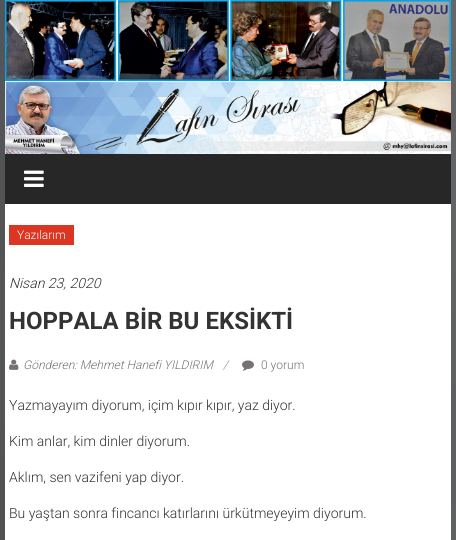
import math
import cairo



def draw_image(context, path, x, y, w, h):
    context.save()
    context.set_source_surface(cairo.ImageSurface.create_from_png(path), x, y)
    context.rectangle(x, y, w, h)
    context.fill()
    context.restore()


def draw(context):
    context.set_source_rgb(1, 1, 1)
    context.paint()
    draw_image(context, "images/1.png", 0, 0, 456, 540)
    context.set_source_rgb(1, 1, 1)
    context.rectangle(5, 204, 446, 336)
    context.fill()
    draw_image(context, "images/2.png", 5, 0, 446, 154)
    context.set_source_rgb(39 / 255, 39 / 255, 39 / 255)
    context.rectangle(5, 154, 446, 50)
    context.fill()
    draw_image(context, "images/3.png", 24, 170, 20, 17)
    context.set_source_rgb(220 / 255, 53 / 255, 34 / 255)
    context.rectangle(9, 225, 65, 20)
    context.fill()
    draw_image(context, "images/4.png", 9, 359, 10, 11)
    draw_image(context, "images/5.png", 242, 360, 12, 11)
    context.select_font_face("Roboto Light")
    context.set_font_size(12)
    context.set_source_rgb(1, 1, 1)
    context.move_to(17, 239)
    context.show_text("Yazılarım")
    context.select_font_face("Roboto Light", cairo.FontSlant.ITALIC)
    context.set_font_size(14)
    context.set_source_rgb(51 / 255, 51 / 255, 51 / 255)
    context.move_to(9, 288)
    context.show_text("Nisan 23, 2020")
    context.select_font_face("Roboto", cairo.FontSlant.NORMAL, cairo.FontWeight.BOLD)
    context.set_font_size(24)
    context.move_to(9, 329)
    context.show_text("HOPPALA BİR BU EKSİKTİ")
    context.select_font_face("Roboto Light", cairo.FontSlant.ITALIC)
    context.set_font_size(12)
    context.set_source_rgb(118 / 255, 114 / 255, 114 / 255)
    context.move_to(23, 369)
    context.show_text("Gönderen: Mehmet Hanefi YILDIRIM")
    context.set_source_rgb(128 / 255, 128 / 255, 128 / 255)
    context.move_to(223, 369)
    context.show_text("/")
    context.select_font_face("Roboto Light")
    context.set_source_rgb(118 / 255, 114 / 255, 114 / 255)
    context.move_to(261, 369)
    context.show_text("0 yorum")
    context.set_font_size(14)
    context.set_source_rgb(51 / 255, 51 / 255, 51 / 255)
    context.move_to(9, 410)
    context.show_text("Yazmayayım diyorum, içim kıpır kıpır, yaz diyor.")
    context.move_to(9, 446)
    context.show_text("Kim anlar, kim dinler diyorum.")
    context.move_to(9, 482)
    context.show_text("Aklım, sen vazifeni yap diyor.")
    context.move_to(9, 518)
    context.show_text("Bu yaştan sonra fincancı katırlarını ürkütmeyeyim diyorum.")


surface = cairo.ImageSurface(cairo.Format.RGB24, 456, 540)
context = cairo.Context(surface)
options = cairo.FontOptions()
options.set_hint_metrics(cairo.HintMetrics.OFF)
options.set_hint_style(cairo.HintStyle.NONE)
context.set_font_options(options)
context.set_miter_limit(4)
draw(context)
surface.write_to_png("out.png")
